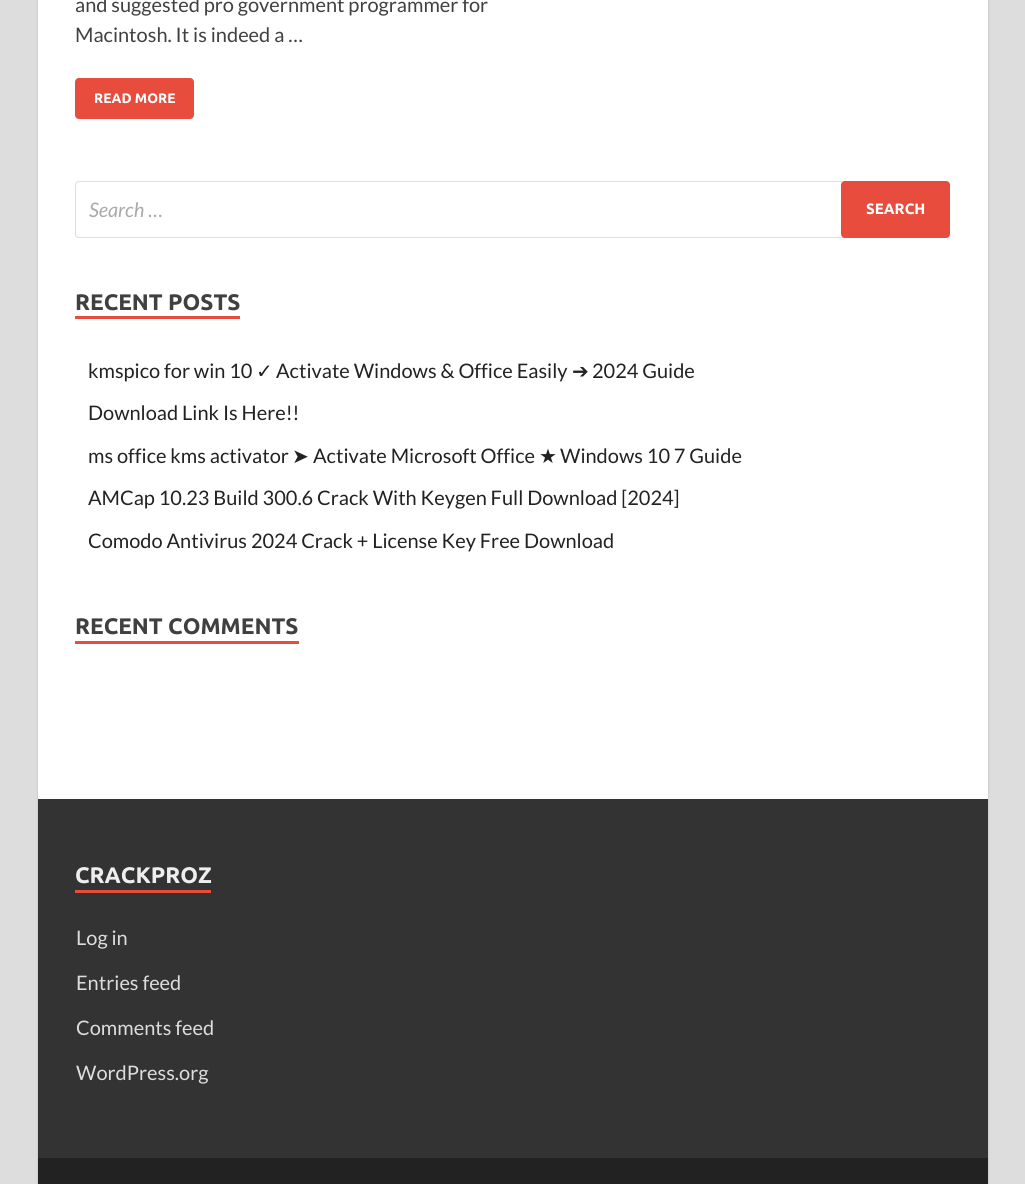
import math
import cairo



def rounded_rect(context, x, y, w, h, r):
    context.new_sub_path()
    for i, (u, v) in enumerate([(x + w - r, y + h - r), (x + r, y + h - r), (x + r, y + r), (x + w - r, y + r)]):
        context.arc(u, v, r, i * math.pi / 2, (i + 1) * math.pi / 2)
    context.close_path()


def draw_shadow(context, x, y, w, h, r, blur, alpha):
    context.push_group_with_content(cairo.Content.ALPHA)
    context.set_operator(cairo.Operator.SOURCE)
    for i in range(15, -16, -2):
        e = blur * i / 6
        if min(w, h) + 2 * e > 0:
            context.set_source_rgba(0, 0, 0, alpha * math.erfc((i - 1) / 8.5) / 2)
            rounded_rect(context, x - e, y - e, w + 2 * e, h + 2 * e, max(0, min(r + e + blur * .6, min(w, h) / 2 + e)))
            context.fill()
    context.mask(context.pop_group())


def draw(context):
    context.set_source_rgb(221 / 255, 221 / 255, 221 / 255)
    context.paint()
    context.set_source_rgb(187 / 255, 187 / 255, 187 / 255)
    draw_shadow(context, 38, -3, 950, 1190, 0, 1, 1)
    context.set_source_rgb(1, 1, 1)
    context.rectangle(38, 0, 950, 799)
    context.fill()
    context.set_source_rgb(231 / 255, 76 / 255, 60 / 255)
    rounded_rect(context, 75, 78, 119, 41, 4)
    context.fill()
    rounded_rect(context, 75.5, 181.5, 874, 56, 3.5)
    context.set_source_rgb(221 / 255, 221 / 255, 221 / 255)
    context.set_line_width(1)
    context.stroke()
    context.set_source_rgb(231 / 255, 76 / 255, 60 / 255)
    rounded_rect(context, 841, 181, 109, 57, 4)
    context.fill()
    context.rectangle(75, 316, 165, 3)
    context.fill()
    context.rectangle(75, 641, 224, 3)
    context.fill()
    context.set_source_rgb(51 / 255, 51 / 255, 51 / 255)
    context.rectangle(38, 799, 950, 359)
    context.fill()
    context.set_source_rgb(231 / 255, 76 / 255, 60 / 255)
    context.rectangle(75, 890, 136, 3)
    context.fill()
    context.set_source_rgb(34 / 255, 34 / 255, 34 / 255)
    context.rectangle(38, 1158, 950, 26)
    context.fill()
    context.select_font_face("Lato")
    context.set_font_size(20)
    context.set_source_rgb(64 / 255, 64 / 255, 64 / 255)
    context.move_to(75, 12)
    context.show_text("and suggested pro government programmer for")
    context.move_to(75, 42)
    context.show_text("Macintosh. It is indeed a …")
    context.select_font_face("Ubuntu", cairo.FontSlant.NORMAL, cairo.FontWeight.BOLD)
    context.set_font_size(13.75)
    context.set_source_rgb(1, 1, 1)
    context.move_to(94, 103)
    context.show_text("READ MORE")
    context.select_font_face("Lato", cairo.FontSlant.ITALIC)
    context.set_font_size(20)
    context.set_source_rgb(170 / 255, 170 / 255, 170 / 255)
    context.move_to(89, 217)
    context.show_text("Search …")
    context.select_font_face("Ubuntu", cairo.FontSlant.NORMAL, cairo.FontWeight.BOLD)
    context.set_font_size(15)
    context.set_source_rgb(1, 1, 1)
    context.move_to(866, 214)
    context.show_text("SEARCH")
    context.set_font_size(22.5)
    context.set_source_rgb(64 / 255, 64 / 255, 64 / 255)
    context.move_to(75, 310)
    context.show_text("RECENT POSTS")
    context.select_font_face("Lato")
    context.set_font_size(20)
    context.set_source_rgb(34 / 255, 34 / 255, 34 / 255)
    context.move_to(88, 378)
    context.show_text("kmspico for win 10")
    context.select_font_face("DejaVu Sans")
    context.move_to(256, 378)
    context.show_text("✓")
    context.select_font_face("Lato")
    context.move_to(276, 378)
    context.show_text("Activate Windows & Office Easily")
    context.select_font_face("DejaVu Sans")
    context.move_to(572, 378)
    context.show_text("➔")
    context.select_font_face("Lato")
    context.move_to(592, 378)
    context.show_text("2024 Guide")
    context.move_to(88, 420)
    context.show_text("Download Link Is Here!!")
    context.move_to(88, 463)
    context.show_text("ms office kms activator")
    context.select_font_face("DejaVu Sans")
    context.move_to(292, 463)
    context.show_text("➤")
    context.select_font_face("Lato")
    context.move_to(313, 463)
    context.show_text("Activate Microsoft Office")
    context.select_font_face("DejaVu Sans")
    context.move_to(539, 463)
    context.show_text("★")
    context.select_font_face("Lato")
    context.move_to(560, 463)
    context.show_text("Windows 10 7 Guide")
    context.move_to(88, 505)
    context.show_text("AMCap 10.23 Build 300.6 Crack With Keygen Full Download [2024]")
    context.move_to(88, 548)
    context.show_text("Comodo Antivirus 2024 Crack + License Key Free Download")
    context.select_font_face("Ubuntu", cairo.FontSlant.NORMAL, cairo.FontWeight.BOLD)
    context.set_font_size(22.5)
    context.set_source_rgb(64 / 255, 64 / 255, 64 / 255)
    context.move_to(75, 634)
    context.show_text("RECENT COMMENTS")
    context.set_source_rgb(238 / 255, 238 / 255, 238 / 255)
    context.move_to(75, 883)
    context.show_text("CRACKPROZ")
    context.select_font_face("Lato")
    context.set_font_size(20)
    context.set_source_rgb(221 / 255, 221 / 255, 221 / 255)
    context.move_to(76, 945)
    context.show_text("Log in")
    context.move_to(76, 990)
    context.show_text("Entries feed")
    context.move_to(76, 1035)
    context.show_text("Comments feed")
    context.move_to(76, 1080)
    context.show_text("WordPress.org")


surface = cairo.ImageSurface(cairo.Format.RGB24, 1025, 1184)
context = cairo.Context(surface)
options = cairo.FontOptions()
options.set_hint_metrics(cairo.HintMetrics.OFF)
options.set_hint_style(cairo.HintStyle.NONE)
context.set_font_options(options)
context.set_miter_limit(4)
draw(context)
surface.write_to_png("out.png")
